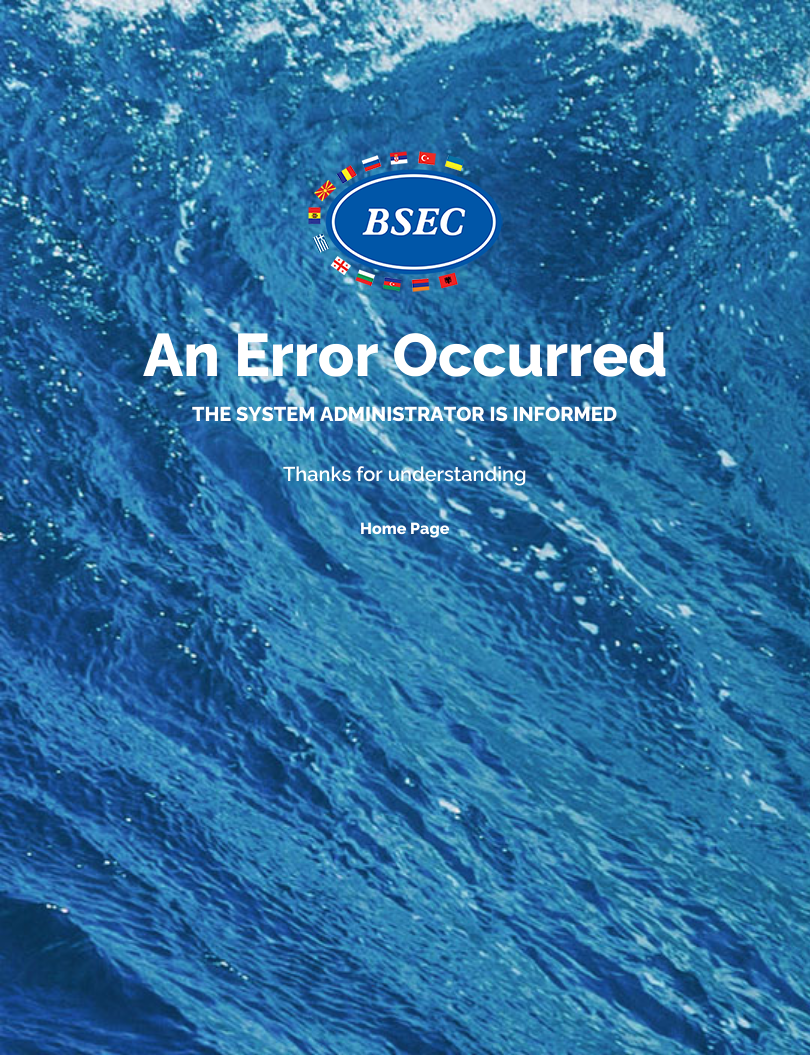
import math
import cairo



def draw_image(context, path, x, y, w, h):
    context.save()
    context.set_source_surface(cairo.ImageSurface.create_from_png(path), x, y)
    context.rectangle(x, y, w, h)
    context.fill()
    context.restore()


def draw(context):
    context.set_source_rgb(1, 1, 1)
    context.paint()
    draw_image(context, "images/1.png", 0, 0, 810, 1055)
    draw_image(context, "images/2.png", 308, 151, 195, 141)
    context.select_font_face("Raleway ExtraBold")
    context.set_font_size(60)
    context.set_source_rgb(1, 1, 1)
    context.move_to(143, 376)
    context.show_text("An Error Occurred")
    context.set_font_size(20)
    context.move_to(192, 421)
    context.show_text("THE SYSTEM ADMINISTRATOR IS INFORMED")
    context.select_font_face("Raleway SemiBold")
    context.move_to(283, 481)
    context.show_text("Thanks for understanding")
    context.select_font_face("Raleway ExtraBold")
    context.set_font_size(16)
    context.move_to(360, 534)
    context.show_text("Home Page")


surface = cairo.ImageSurface(cairo.Format.RGB24, 810, 1055)
context = cairo.Context(surface)
options = cairo.FontOptions()
options.set_hint_metrics(cairo.HintMetrics.OFF)
options.set_hint_style(cairo.HintStyle.NONE)
context.set_font_options(options)
context.set_miter_limit(4)
draw(context)
surface.write_to_png("out.png")
